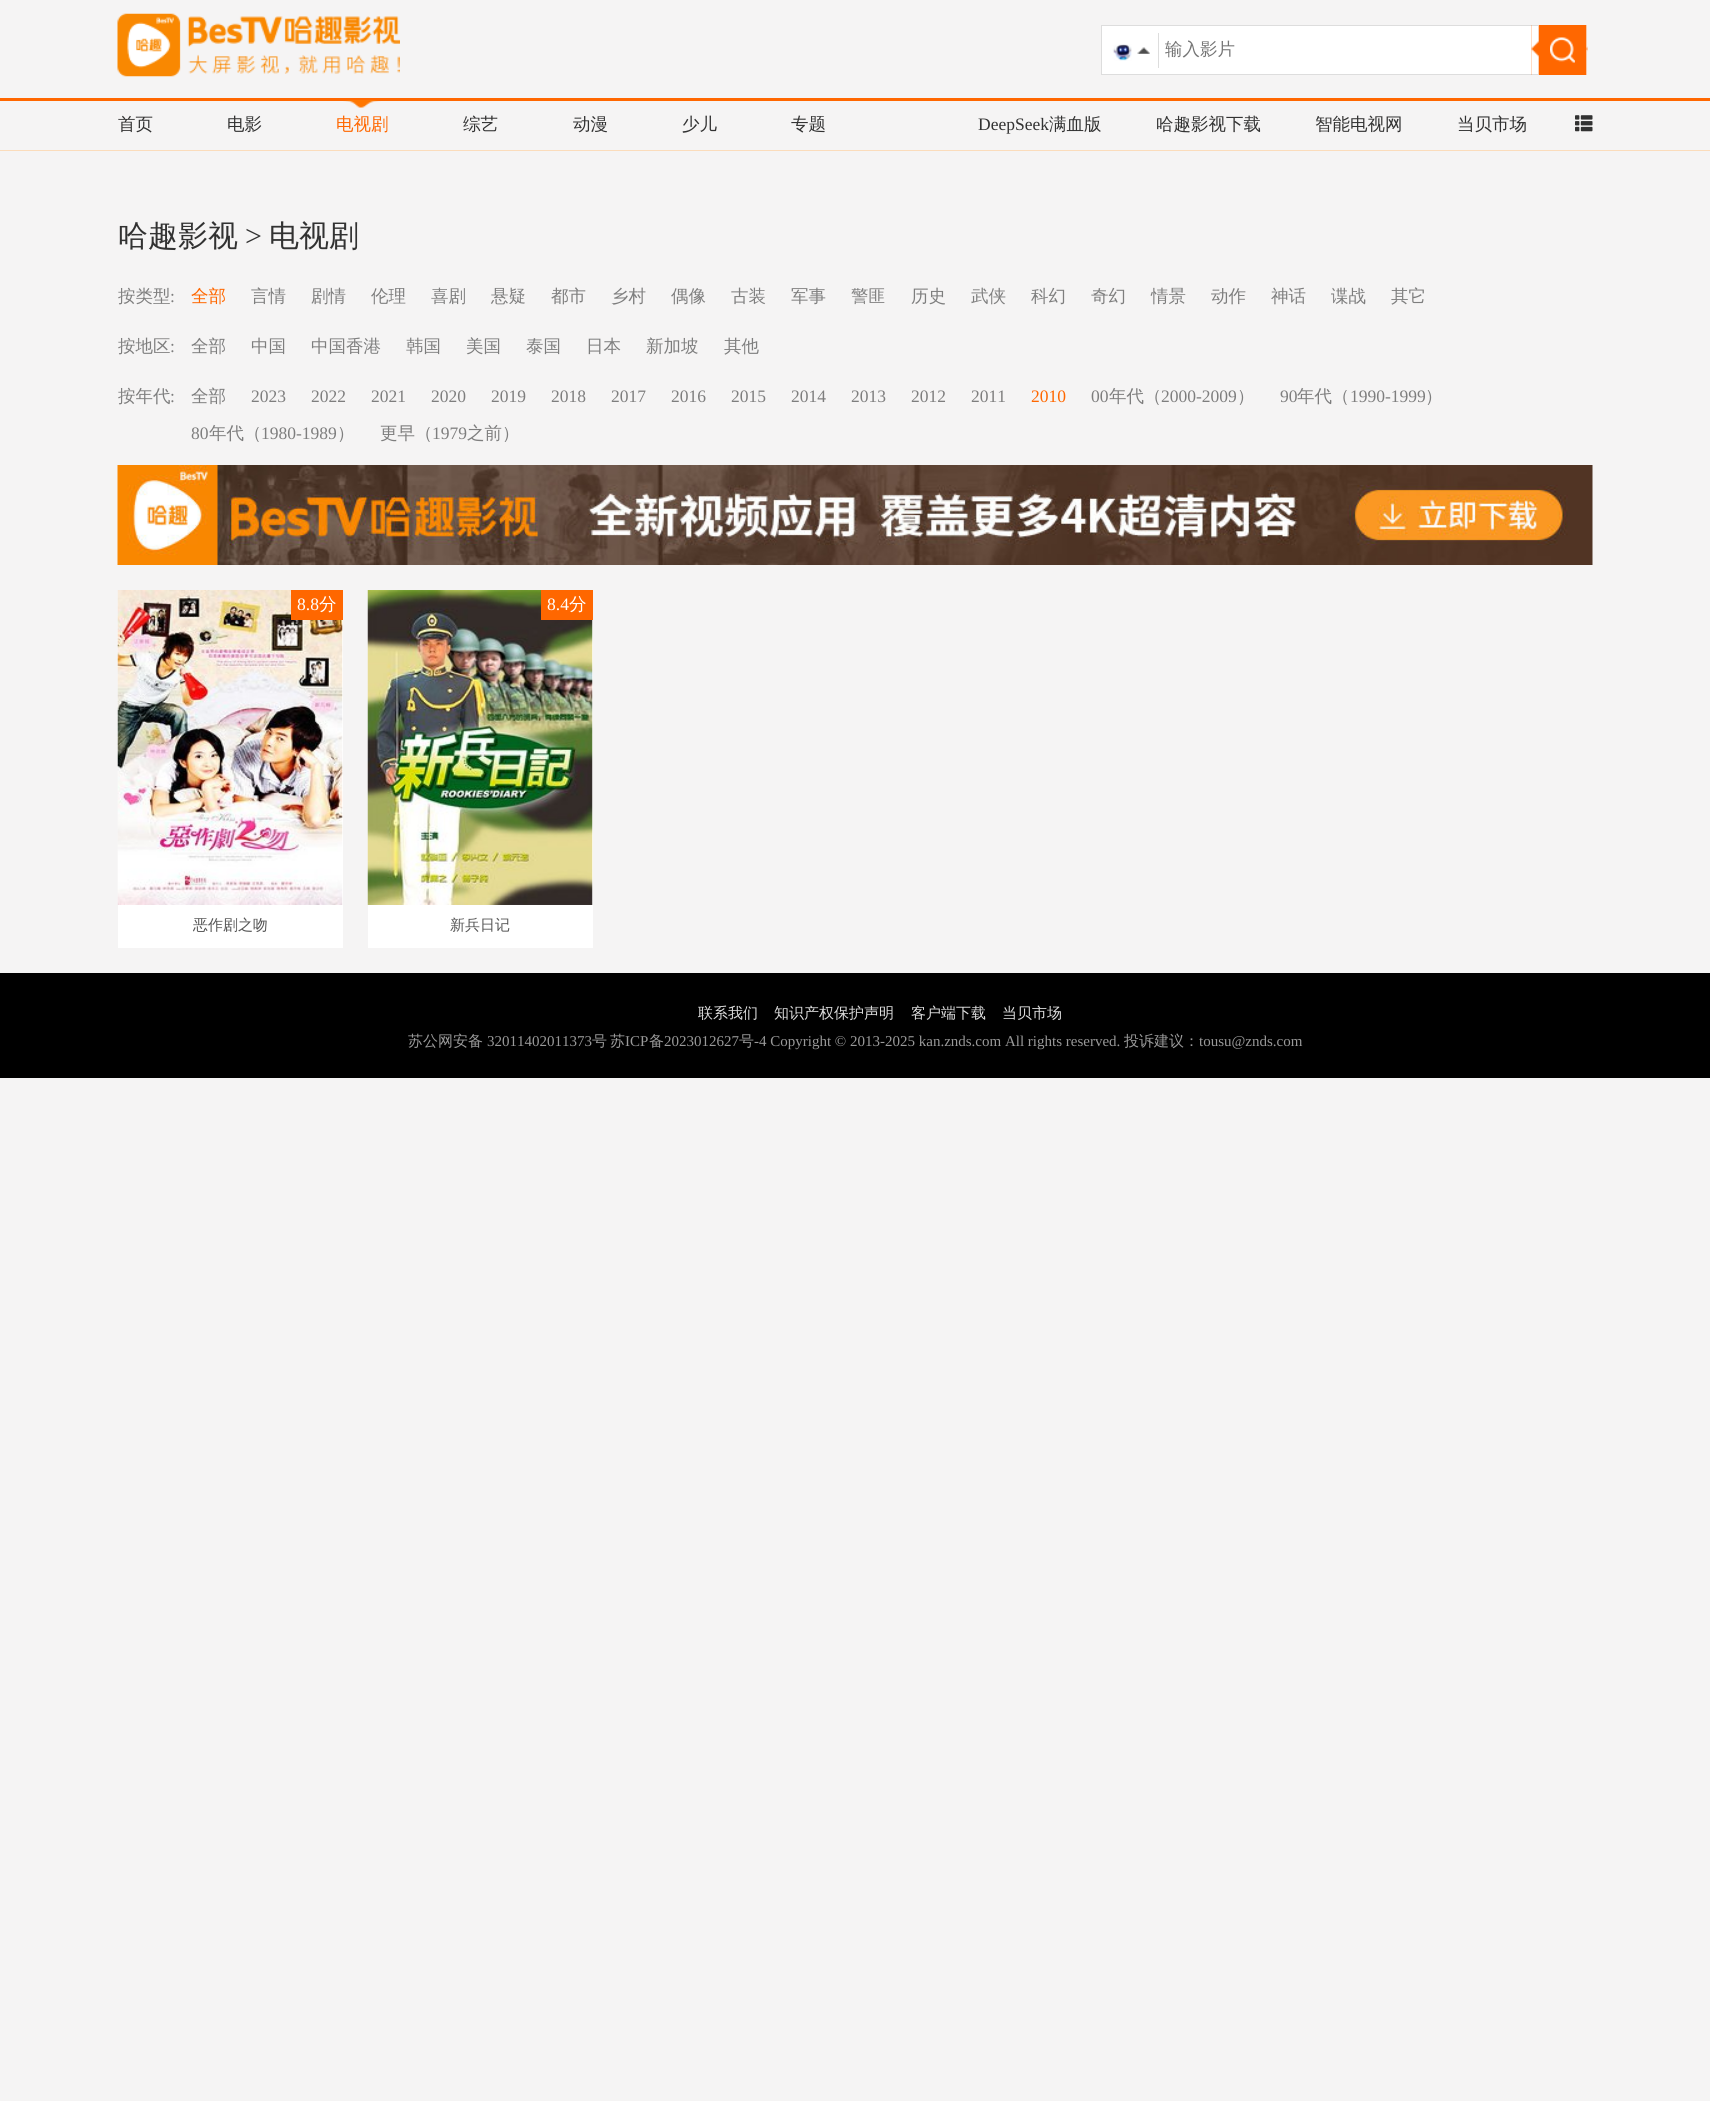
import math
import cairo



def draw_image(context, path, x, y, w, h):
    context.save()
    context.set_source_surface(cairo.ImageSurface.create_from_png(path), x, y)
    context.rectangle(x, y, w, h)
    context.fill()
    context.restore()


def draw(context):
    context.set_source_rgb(245 / 255, 244 / 255, 244 / 255)
    context.paint()
    context.set_source_rgb(1, 103 / 255, 0)
    context.rectangle(0, 98, 1710, 3)
    context.fill()
    draw_image(context, "images/1.png", 117, 13, 283, 64)
    context.set_source_rgb(1, 1, 1)
    context.rectangle(1102, 26, 436, 48)
    context.fill()
    context.set_source_rgb(221 / 255, 221 / 255, 221 / 255)
    context.rectangle(1101, 25, 437, 1)
    context.fill()
    context.rectangle(1101, 74, 437, 1)
    context.fill()
    context.rectangle(1101, 25, 1, 50)
    context.fill()
    draw_image(context, "images/2.png", 1137, 47, 13, 7)
    context.rectangle(1158, 33, 1, 35)
    context.fill()
    draw_image(context, "images/3.png", 1112, 44, 20, 17)
    draw_image(context, "images/4.png", 1531, 25, 57, 50)
    draw_image(context, "images/5.png", 1550, 37, 25, 26)
    context.set_source_rgb(251 / 255, 220 / 255, 187 / 255)
    context.rectangle(0, 150, 1710, 1)
    context.fill()
    draw_image(context, "images/6.png", 343, 100, 38, 8)
    draw_image(context, "images/7.png", 1575, 115, 18, 17)
    draw_image(context, "images/8.png", 117, 465, 1476, 100)
    context.set_source_rgb(1, 1, 1)
    context.rectangle(118, 620, 225, 328)
    context.fill()
    draw_image(context, "images/9.png", 117, 590, 226, 315)
    context.set_source_rgb(1, 103 / 255, 0)
    context.rectangle(291, 590, 52, 30)
    context.fill()
    context.set_source_rgb(1, 1, 1)
    context.rectangle(368, 620, 225, 328)
    context.fill()
    draw_image(context, "images/10.png", 367, 590, 226, 315)
    context.set_source_rgb(1, 103 / 255, 0)
    context.rectangle(541, 590, 52, 30)
    context.fill()
    context.set_source_rgb(0, 0, 0)
    context.rectangle(0, 973, 1710, 105)
    context.fill()
    context.select_font_face("WenQuanYi Zen Hei Medium")
    context.set_font_size(17.5)
    context.set_source_rgb(117 / 255, 117 / 255, 117 / 255)
    context.move_to(1165, 55)
    context.show_text("输入影片")
    context.set_source_rgb(50 / 255, 50 / 255, 50 / 255)
    context.move_to(118, 130)
    context.show_text("首页")
    context.move_to(227, 130)
    context.show_text("电影")
    context.set_source_rgb(1, 103 / 255, 0)
    context.move_to(336, 130)
    context.show_text("电视剧")
    context.set_source_rgb(50 / 255, 50 / 255, 50 / 255)
    context.move_to(463, 130)
    context.show_text("综艺")
    context.move_to(573, 130)
    context.show_text("动漫")
    context.move_to(682, 130)
    context.show_text("少儿")
    context.move_to(791, 130)
    context.show_text("专题")
    context.select_font_face("Liberation Serif")
    context.move_to(978, 130)
    context.show_text("DeepSeek")
    context.select_font_face("WenQuanYi Zen Hei Medium")
    context.move_to(1049, 130)
    context.show_text("满血版")
    context.move_to(1156, 130)
    context.show_text("哈趣影视下载")
    context.move_to(1315, 130)
    context.show_text("智能电视网")
    context.move_to(1457, 130)
    context.show_text("当贝市场")
    context.set_font_size(30)
    context.move_to(118, 246)
    context.show_text("哈趣影视")
    context.select_font_face("Liberation Serif")
    context.move_to(245, 246)
    context.show_text(">")
    context.select_font_face("WenQuanYi Zen Hei Medium")
    context.move_to(269, 246)
    context.show_text("电视剧")
    context.set_font_size(17.5)
    context.set_source_rgb(126 / 255, 126 / 255, 126 / 255)
    context.move_to(118, 302)
    context.show_text("按类型")
    context.select_font_face("Liberation Serif")
    context.move_to(170, 302)
    context.show_text(":")
    context.select_font_face("WenQuanYi Zen Hei Medium")
    context.set_source_rgb(1, 103 / 255, 0)
    context.move_to(191, 302)
    context.show_text("全部")
    context.set_source_rgb(126 / 255, 126 / 255, 126 / 255)
    context.move_to(251, 302)
    context.show_text("言情")
    context.move_to(311, 302)
    context.show_text("剧情")
    context.move_to(371, 302)
    context.show_text("伦理")
    context.move_to(431, 302)
    context.show_text("喜剧")
    context.move_to(491, 302)
    context.show_text("悬疑")
    context.move_to(551, 302)
    context.show_text("都市")
    context.move_to(611, 302)
    context.show_text("乡村")
    context.move_to(671, 302)
    context.show_text("偶像")
    context.move_to(731, 302)
    context.show_text("古装")
    context.move_to(791, 302)
    context.show_text("军事")
    context.move_to(851, 302)
    context.show_text("警匪")
    context.move_to(911, 302)
    context.show_text("历史")
    context.move_to(971, 302)
    context.show_text("武侠")
    context.move_to(1031, 302)
    context.show_text("科幻")
    context.move_to(1091, 302)
    context.show_text("奇幻")
    context.move_to(1151, 302)
    context.show_text("情景")
    context.move_to(1211, 302)
    context.show_text("动作")
    context.move_to(1271, 302)
    context.show_text("神话")
    context.move_to(1331, 302)
    context.show_text("谍战")
    context.move_to(1391, 302)
    context.show_text("其它")
    context.move_to(118, 352)
    context.show_text("按地区")
    context.select_font_face("Liberation Serif")
    context.move_to(170, 352)
    context.show_text(":")
    context.select_font_face("WenQuanYi Zen Hei Medium")
    context.move_to(191, 352)
    context.show_text("全部")
    context.move_to(251, 352)
    context.show_text("中国")
    context.move_to(311, 352)
    context.show_text("中国香港")
    context.move_to(406, 352)
    context.show_text("韩国")
    context.move_to(466, 352)
    context.show_text("美国")
    context.move_to(526, 352)
    context.show_text("泰国")
    context.move_to(586, 352)
    context.show_text("日本")
    context.move_to(646, 352)
    context.show_text("新加坡")
    context.move_to(724, 352)
    context.show_text("其他")
    context.move_to(118, 402)
    context.show_text("按年代")
    context.select_font_face("Liberation Serif")
    context.move_to(170, 402)
    context.show_text(":")
    context.select_font_face("WenQuanYi Zen Hei Medium")
    context.move_to(191, 402)
    context.show_text("全部")
    context.select_font_face("Liberation Serif")
    context.move_to(251, 402)
    context.show_text("2023")
    context.move_to(311, 402)
    context.show_text("2022")
    context.move_to(371, 402)
    context.show_text("2021")
    context.move_to(431, 402)
    context.show_text("2020")
    context.move_to(491, 402)
    context.show_text("2019")
    context.move_to(551, 402)
    context.show_text("2018")
    context.move_to(611, 402)
    context.show_text("2017")
    context.move_to(671, 402)
    context.show_text("2016")
    context.move_to(731, 402)
    context.show_text("2015")
    context.move_to(791, 402)
    context.show_text("2014")
    context.move_to(851, 402)
    context.show_text("2013")
    context.move_to(911, 402)
    context.show_text("2012")
    context.move_to(971, 402)
    context.show_text("2011")
    context.set_source_rgb(1, 103 / 255, 0)
    context.move_to(1031, 402)
    context.show_text("2010")
    context.set_source_rgb(126 / 255, 126 / 255, 126 / 255)
    context.move_to(1091, 402)
    context.show_text("00")
    context.select_font_face("WenQuanYi Zen Hei Medium")
    context.move_to(1109, 402)
    context.show_text("年代（")
    context.select_font_face("Liberation Serif")
    context.move_to(1161, 402)
    context.show_text("2000-2009")
    context.select_font_face("WenQuanYi Zen Hei Medium")
    context.move_to(1237, 402)
    context.show_text("）")
    context.select_font_face("Liberation Serif")
    context.move_to(1280, 402)
    context.show_text("90")
    context.select_font_face("WenQuanYi Zen Hei Medium")
    context.move_to(1297, 402)
    context.show_text("年代（")
    context.select_font_face("Liberation Serif")
    context.move_to(1350, 402)
    context.show_text("1990-1999")
    context.select_font_face("WenQuanYi Zen Hei Medium")
    context.move_to(1425, 402)
    context.show_text("）")
    context.select_font_face("Liberation Serif")
    context.move_to(191, 439)
    context.show_text("80")
    context.select_font_face("WenQuanYi Zen Hei Medium")
    context.move_to(209, 439)
    context.show_text("年代（")
    context.select_font_face("Liberation Serif")
    context.move_to(261, 439)
    context.show_text("1980-1989")
    context.select_font_face("WenQuanYi Zen Hei Medium")
    context.move_to(337, 439)
    context.show_text("）")
    context.move_to(380, 439)
    context.show_text("更早（")
    context.select_font_face("Liberation Serif")
    context.move_to(432, 439)
    context.show_text("1979")
    context.select_font_face("WenQuanYi Zen Hei Medium")
    context.move_to(467, 439)
    context.show_text("之前）")
    context.select_font_face("Liberation Serif")
    context.set_source_rgb(1, 1, 1)
    context.move_to(297, 610)
    context.show_text("8.8")
    context.select_font_face("WenQuanYi Zen Hei Medium")
    context.move_to(319, 610)
    context.show_text("分")
    context.set_font_size(15)
    context.set_source_rgb(85 / 255, 85 / 255, 85 / 255)
    context.move_to(193, 930)
    context.show_text("恶作剧之吻")
    context.select_font_face("Liberation Serif")
    context.set_font_size(17.5)
    context.set_source_rgb(1, 1, 1)
    context.move_to(547, 610)
    context.show_text("8.4")
    context.select_font_face("WenQuanYi Zen Hei Medium")
    context.move_to(569, 610)
    context.show_text("分")
    context.set_font_size(15)
    context.set_source_rgb(85 / 255, 85 / 255, 85 / 255)
    context.move_to(450, 930)
    context.show_text("新兵日记")
    context.set_source_rgb(221 / 255, 221 / 255, 221 / 255)
    context.move_to(698, 1018)
    context.show_text("联系我们")
    context.move_to(774, 1018)
    context.show_text("知识产权保护声明")
    context.move_to(911, 1018)
    context.show_text("客户端下载")
    context.move_to(1002, 1018)
    context.show_text("当贝市场")
    context.set_source_rgb(153 / 255, 153 / 255, 153 / 255)
    context.move_to(408, 1046)
    context.show_text("苏公网安备")
    context.select_font_face("Liberation Serif")
    context.move_to(487, 1046)
    context.show_text("32011402011373")
    context.select_font_face("WenQuanYi Zen Hei Medium")
    context.move_to(592, 1046)
    context.show_text("号")
    context.move_to(610, 1046)
    context.show_text("苏")
    context.select_font_face("Liberation Serif")
    context.move_to(625, 1046)
    context.show_text("ICP")
    context.select_font_face("WenQuanYi Zen Hei Medium")
    context.move_to(649, 1046)
    context.show_text("备")
    context.select_font_face("Liberation Serif")
    context.move_to(664, 1046)
    context.show_text("2023012627")
    context.select_font_face("WenQuanYi Zen Hei Medium")
    context.move_to(739, 1046)
    context.show_text("号")
    context.select_font_face("Liberation Serif")
    context.move_to(754, 1046)
    context.show_text("-4 Copyright © 2013-2025 kan.znds.com All rights reserved.")
    context.select_font_face("WenQuanYi Zen Hei Medium")
    context.move_to(1124, 1046)
    context.show_text("投诉建议：")
    context.select_font_face("Liberation Serif")
    context.move_to(1199, 1046)
    context.show_text("tousu@znds.com")


surface = cairo.ImageSurface(cairo.Format.RGB24, 1710, 2101)
context = cairo.Context(surface)
options = cairo.FontOptions()
options.set_hint_metrics(cairo.HintMetrics.OFF)
options.set_hint_style(cairo.HintStyle.NONE)
context.set_font_options(options)
context.set_miter_limit(4)
draw(context)
surface.write_to_png("out.png")
